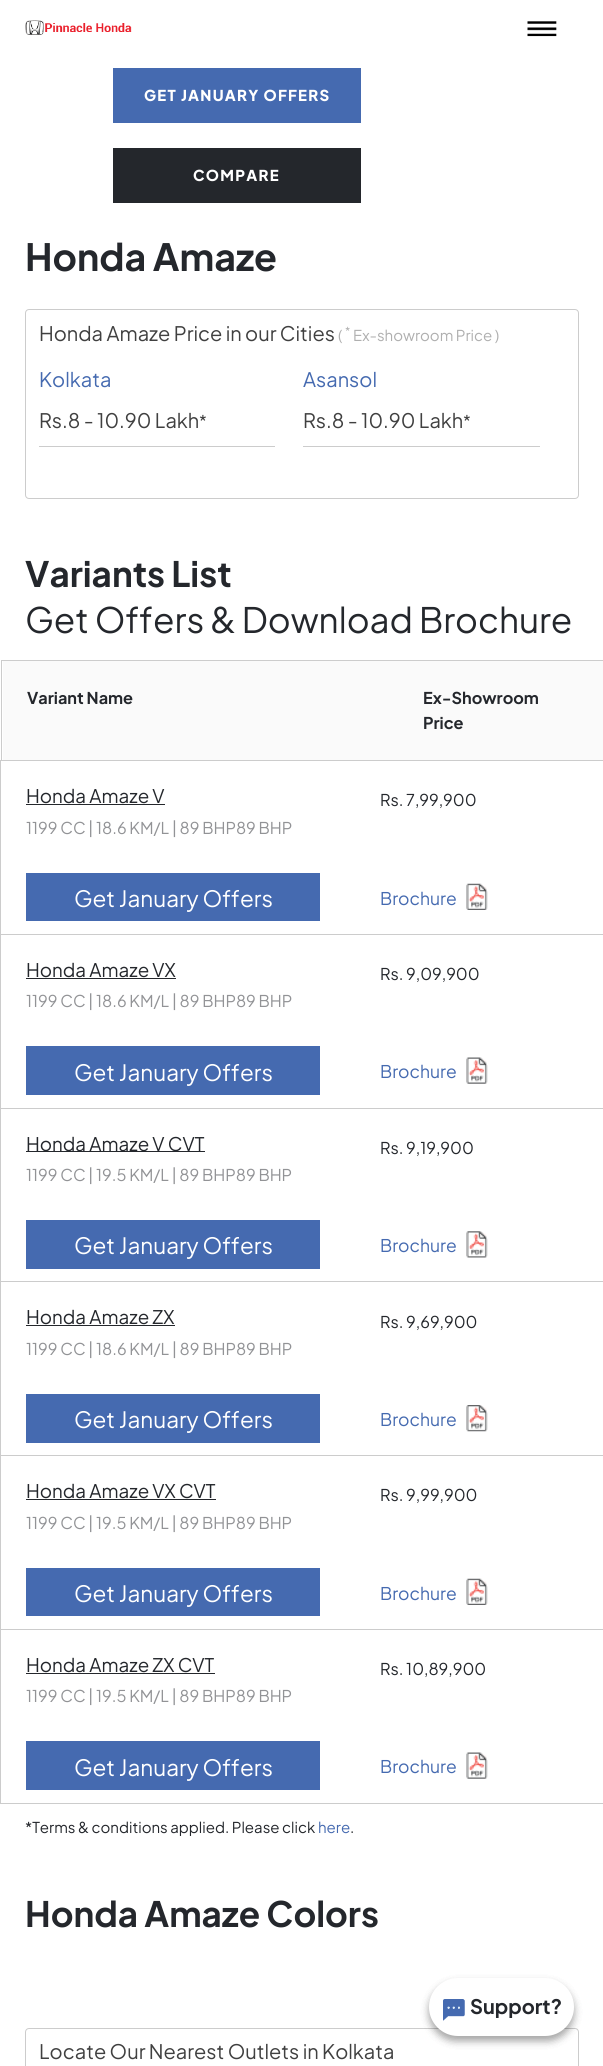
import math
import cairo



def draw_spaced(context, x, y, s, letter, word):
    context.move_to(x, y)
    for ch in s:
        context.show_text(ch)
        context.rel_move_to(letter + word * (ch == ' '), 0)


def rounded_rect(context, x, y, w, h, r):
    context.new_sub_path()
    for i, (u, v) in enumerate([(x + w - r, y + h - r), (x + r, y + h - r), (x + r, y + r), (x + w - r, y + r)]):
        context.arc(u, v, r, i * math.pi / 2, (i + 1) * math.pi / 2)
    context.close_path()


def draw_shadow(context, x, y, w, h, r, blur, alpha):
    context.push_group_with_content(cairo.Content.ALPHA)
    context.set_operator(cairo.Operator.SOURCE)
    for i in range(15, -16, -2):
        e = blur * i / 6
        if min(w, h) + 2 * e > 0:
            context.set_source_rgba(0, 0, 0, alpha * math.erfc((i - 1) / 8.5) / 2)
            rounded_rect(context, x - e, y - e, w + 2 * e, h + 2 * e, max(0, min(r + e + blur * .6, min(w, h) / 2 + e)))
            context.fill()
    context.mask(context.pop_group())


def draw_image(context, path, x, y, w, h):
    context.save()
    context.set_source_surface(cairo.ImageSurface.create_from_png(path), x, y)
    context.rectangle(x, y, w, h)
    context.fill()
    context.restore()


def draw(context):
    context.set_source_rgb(1, 1, 1)
    context.paint()
    draw_image(context, "images/1.png", 25, 20, 107, 15)
    draw_image(context, "images/2.png", 527, 21, 30, 16)
    context.set_source_rgb(69 / 255, 106 / 255, 176 / 255)
    context.rectangle(113, 68, 248, 55)
    context.fill()
    context.set_source_rgb(36 / 255, 39 / 255, 44 / 255)
    context.rectangle(113, 148, 248, 55)
    context.fill()
    rounded_rect(context, 25.5, 309.5, 553, 189, 3.5)
    context.set_source_rgb(204 / 255, 204 / 255, 204 / 255)
    context.set_line_width(1)
    context.stroke()
    context.rectangle(39, 446, 236, 1)
    context.fill()
    context.rectangle(303, 446, 237, 1)
    context.fill()
    context.rectangle(1, 660, 602, 1)
    context.fill()
    context.rectangle(1, 660, 1, 100)
    context.fill()
    context.set_source_rgb(250 / 255, 250 / 255, 250 / 255)
    context.rectangle(3, 661, 600, 99)
    context.fill()
    context.set_source_rgb(204 / 255, 204 / 255, 204 / 255)
    context.rectangle(0, 760, 603, 1)
    context.fill()
    context.rectangle(0, 934, 603, 1)
    context.fill()
    context.rectangle(0, 1108, 603, 1)
    context.fill()
    context.rectangle(0, 1281, 603, 1)
    context.fill()
    context.rectangle(0, 1455, 603, 1)
    context.fill()
    context.rectangle(0, 1629, 603, 1)
    context.fill()
    context.rectangle(0, 1803, 603, 1)
    context.fill()
    context.rectangle(0, 1629, 1, 175)
    context.fill()
    context.rectangle(0, 1455, 1, 175)
    context.fill()
    context.rectangle(0, 1281, 1, 175)
    context.fill()
    context.rectangle(0, 1108, 1, 175)
    context.fill()
    context.rectangle(0, 934, 1, 175)
    context.fill()
    context.rectangle(0, 760, 1, 175)
    context.fill()
    context.set_source_rgb(36 / 255, 39 / 255, 44 / 255)
    context.rectangle(26, 804, 139, 1)
    context.fill()
    context.set_source_rgb(69 / 255, 106 / 255, 176 / 255)
    context.rectangle(26, 873, 294, 48)
    context.fill()
    draw_image(context, "images/3.png", 466, 883, 22, 27)
    context.set_source_rgb(36 / 255, 39 / 255, 44 / 255)
    context.rectangle(26, 978, 150, 1)
    context.fill()
    context.set_source_rgb(69 / 255, 106 / 255, 176 / 255)
    context.rectangle(26, 1046, 294, 49)
    context.fill()
    draw_image(context, "images/4.png", 466, 1057, 22, 27)
    context.set_source_rgb(36 / 255, 39 / 255, 44 / 255)
    context.rectangle(26, 1151, 179, 1)
    context.fill()
    context.set_source_rgb(69 / 255, 106 / 255, 176 / 255)
    context.rectangle(26, 1220, 294, 49)
    context.fill()
    draw_image(context, "images/5.png", 466, 1231, 22, 27)
    context.set_source_rgb(36 / 255, 39 / 255, 44 / 255)
    context.rectangle(26, 1325, 149, 1)
    context.fill()
    context.set_source_rgb(69 / 255, 106 / 255, 176 / 255)
    context.rectangle(26, 1394, 294, 49)
    context.fill()
    draw_image(context, "images/6.png", 466, 1405, 22, 27)
    context.set_source_rgb(36 / 255, 39 / 255, 44 / 255)
    context.rectangle(26, 1499, 190, 1)
    context.fill()
    context.set_source_rgb(69 / 255, 106 / 255, 176 / 255)
    context.rectangle(26, 1568, 294, 48)
    context.fill()
    draw_image(context, "images/3.png", 466, 1578, 22, 27)
    context.set_source_rgb(36 / 255, 39 / 255, 44 / 255)
    context.rectangle(26, 1673, 189, 1)
    context.fill()
    context.set_source_rgb(69 / 255, 106 / 255, 176 / 255)
    context.rectangle(26, 1741, 294, 49)
    context.fill()
    draw_image(context, "images/4.png", 466, 1752, 22, 27)
    rounded_rect(context, 25.5, 2028.5, 553, 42, 3.5)
    context.set_source_rgb(204 / 255, 204 / 255, 204 / 255)
    context.stroke()
    context.set_source_rgb(0, 0, 0)
    draw_shadow(context, 429, 1983, 145, 58, 29, 4, 0.19)
    draw_shadow(context, 429, 1983, 145, 58, 29, 4, 0.2)
    context.set_source_rgb(1, 1, 1)
    rounded_rect(context, 429, 1978, 145, 58, 29)
    context.fill()
    draw_image(context, "images/7.png", 443, 1999, 22, 22)
    context.select_font_face("Plus Jakarta Sans ExtraBold")
    context.set_font_size(15)
    draw_spaced(context, 144, 101, "GET JANUARY OFFERS", 1.25, 0)
    draw_spaced(context, 193, 181, "COMPARE", 1.25, 0)
    context.select_font_face("Plus Jakarta Sans", cairo.FontSlant.NORMAL, cairo.FontWeight.BOLD)
    context.set_font_size(37.5)
    context.set_source_rgb(36 / 255, 39 / 255, 44 / 255)
    context.move_to(25, 271)
    context.show_text("Honda Amaze")
    context.select_font_face("Plus Jakarta Sans")
    context.set_font_size(20)
    context.set_source_rgb(64 / 255, 64 / 255, 64 / 255)
    context.move_to(39, 341)
    context.show_text("Honda Amaze Price in our Cities")
    context.set_font_size(11)
    context.set_source_rgb(175 / 255, 175 / 255, 175 / 255)
    context.move_to(345, 335)
    context.show_text("*")
    context.set_font_size(15)
    context.move_to(338, 341)
    context.show_text("(")
    context.move_to(353, 341)
    context.show_text("Ex-showroom Price )")
    context.set_font_size(20)
    context.set_source_rgb(69 / 255, 106 / 255, 176 / 255)
    context.move_to(39, 387)
    context.show_text("Kolkata")
    context.set_source_rgb(64 / 255, 64 / 255, 64 / 255)
    context.move_to(39, 428)
    context.show_text("Rs.8 - 10.90 Lakh")
    context.set_font_size(16.25)
    context.move_to(199, 427)
    context.show_text("*")
    context.set_font_size(20)
    context.set_source_rgb(69 / 255, 106 / 255, 176 / 255)
    context.move_to(303, 387)
    context.show_text("Asansol")
    context.set_source_rgb(64 / 255, 64 / 255, 64 / 255)
    context.move_to(303, 428)
    context.show_text("Rs.8 - 10.90 Lakh")
    context.set_font_size(16.25)
    context.move_to(463, 427)
    context.show_text("*")
    context.select_font_face("Plus Jakarta Sans", cairo.FontSlant.NORMAL, cairo.FontWeight.BOLD)
    context.set_font_size(35)
    context.set_source_rgb(36 / 255, 39 / 255, 44 / 255)
    context.move_to(25, 587)
    context.show_text("Variants List")
    context.select_font_face("Plus Jakarta Sans")
    context.move_to(25, 633)
    context.show_text("Get Offers & Download Brochure")
    context.select_font_face("Plus Jakarta Sans", cairo.FontSlant.NORMAL, cairo.FontWeight.BOLD)
    context.set_font_size(16.25)
    context.move_to(27, 704)
    context.show_text("Variant Name")
    context.move_to(423, 704)
    context.show_text("Ex-Showroom")
    context.move_to(423, 729)
    context.show_text("Price")
    context.select_font_face("Plus Jakarta Sans")
    context.set_font_size(18.75)
    context.move_to(26, 803)
    context.show_text("Honda Amaze V")
    context.set_font_size(16.25)
    context.set_source_rgb(146 / 255, 147 / 255, 150 / 255)
    context.move_to(26, 834)
    context.show_text("1199 CC | 18.6 KM/L | 89 BHP89 BHP")
    context.set_source_rgb(36 / 255, 39 / 255, 44 / 255)
    context.move_to(380, 806)
    context.show_text("Rs. 7,99,900")
    context.set_font_size(22.5)
    context.set_source_rgb(1, 1, 1)
    context.move_to(74, 907)
    context.show_text("Get January Offers")
    context.set_font_size(17.5)
    context.set_source_rgb(69 / 255, 106 / 255, 176 / 255)
    context.move_to(380, 905)
    context.show_text("Brochure")
    context.set_font_size(18.75)
    context.set_source_rgb(36 / 255, 39 / 255, 44 / 255)
    context.move_to(26, 977)
    context.show_text("Honda Amaze VX")
    context.set_font_size(16.25)
    context.set_source_rgb(146 / 255, 147 / 255, 150 / 255)
    context.move_to(26, 1007)
    context.show_text("1199 CC | 18.6 KM/L | 89 BHP89 BHP")
    context.set_source_rgb(36 / 255, 39 / 255, 44 / 255)
    context.move_to(380, 980)
    context.show_text("Rs. 9,09,900")
    context.set_font_size(22.5)
    context.set_source_rgb(1, 1, 1)
    context.move_to(74, 1081)
    context.show_text("Get January Offers")
    context.set_font_size(17.5)
    context.set_source_rgb(69 / 255, 106 / 255, 176 / 255)
    context.move_to(380, 1078)
    context.show_text("Brochure")
    context.set_font_size(18.75)
    context.set_source_rgb(36 / 255, 39 / 255, 44 / 255)
    context.move_to(26, 1151)
    context.show_text("Honda Amaze V CVT")
    context.set_font_size(16.25)
    context.set_source_rgb(146 / 255, 147 / 255, 150 / 255)
    context.move_to(26, 1181)
    context.show_text("1199 CC | 19.5 KM/L | 89 BHP89 BHP")
    context.set_source_rgb(36 / 255, 39 / 255, 44 / 255)
    context.move_to(380, 1154)
    context.show_text("Rs. 9,19,900")
    context.set_font_size(22.5)
    context.set_source_rgb(1, 1, 1)
    context.move_to(74, 1254)
    context.show_text("Get January Offers")
    context.set_font_size(17.5)
    context.set_source_rgb(69 / 255, 106 / 255, 176 / 255)
    context.move_to(380, 1252)
    context.show_text("Brochure")
    context.set_font_size(18.75)
    context.set_source_rgb(36 / 255, 39 / 255, 44 / 255)
    context.move_to(26, 1324)
    context.show_text("Honda Amaze ZX")
    context.set_font_size(16.25)
    context.set_source_rgb(146 / 255, 147 / 255, 150 / 255)
    context.move_to(26, 1355)
    context.show_text("1199 CC | 18.6 KM/L | 89 BHP89 BHP")
    context.set_source_rgb(36 / 255, 39 / 255, 44 / 255)
    context.move_to(380, 1328)
    context.show_text("Rs. 9,69,900")
    context.set_font_size(22.5)
    context.set_source_rgb(1, 1, 1)
    context.move_to(74, 1428)
    context.show_text("Get January Offers")
    context.set_font_size(17.5)
    context.set_source_rgb(69 / 255, 106 / 255, 176 / 255)
    context.move_to(380, 1426)
    context.show_text("Brochure")
    context.set_font_size(18.75)
    context.set_source_rgb(36 / 255, 39 / 255, 44 / 255)
    context.move_to(26, 1498)
    context.show_text("Honda Amaze VX CVT")
    context.set_font_size(16.25)
    context.set_source_rgb(146 / 255, 147 / 255, 150 / 255)
    context.move_to(26, 1529)
    context.show_text("1199 CC | 19.5 KM/L | 89 BHP89 BHP")
    context.set_source_rgb(36 / 255, 39 / 255, 44 / 255)
    context.move_to(380, 1501)
    context.show_text("Rs. 9,99,900")
    context.set_font_size(22.5)
    context.set_source_rgb(1, 1, 1)
    context.move_to(74, 1602)
    context.show_text("Get January Offers")
    context.set_font_size(17.5)
    context.set_source_rgb(69 / 255, 106 / 255, 176 / 255)
    context.move_to(380, 1600)
    context.show_text("Brochure")
    context.set_font_size(18.75)
    context.set_source_rgb(36 / 255, 39 / 255, 44 / 255)
    context.move_to(26, 1672)
    context.show_text("Honda Amaze ZX CVT")
    context.set_font_size(16.25)
    context.set_source_rgb(146 / 255, 147 / 255, 150 / 255)
    context.move_to(26, 1702)
    context.show_text("1199 CC | 19.5 KM/L | 89 BHP89 BHP")
    context.set_source_rgb(36 / 255, 39 / 255, 44 / 255)
    context.move_to(380, 1675)
    context.show_text("Rs. 10,89,900")
    context.set_font_size(22.5)
    context.set_source_rgb(1, 1, 1)
    context.move_to(74, 1776)
    context.show_text("Get January Offers")
    context.set_font_size(17.5)
    context.set_source_rgb(69 / 255, 106 / 255, 176 / 255)
    context.move_to(380, 1773)
    context.show_text("Brochure")
    context.set_font_size(15)
    context.set_source_rgb(36 / 255, 39 / 255, 44 / 255)
    context.move_to(25, 1833)
    context.show_text("*Terms & conditions applied. Please click")
    context.set_source_rgb(69 / 255, 106 / 255, 176 / 255)
    context.move_to(318, 1833)
    context.show_text("here")
    context.set_source_rgb(36 / 255, 39 / 255, 44 / 255)
    context.move_to(350, 1833)
    context.show_text(".")
    context.select_font_face("Plus Jakarta Sans", cairo.FontSlant.NORMAL, cairo.FontWeight.BOLD)
    context.set_font_size(35)
    context.move_to(25, 1927)
    context.show_text("Honda Amaze Colors")
    context.set_font_size(20)
    context.move_to(470, 2014)
    context.show_text("Support?")
    context.select_font_face("Plus Jakarta Sans")
    context.set_source_rgb(64 / 255, 64 / 255, 64 / 255)
    context.move_to(39, 2059)
    context.show_text("Locate Our Nearest Outlets in Kolkata")


surface = cairo.ImageSurface(cairo.Format.RGB24, 603, 2066)
context = cairo.Context(surface)
options = cairo.FontOptions()
options.set_hint_metrics(cairo.HintMetrics.OFF)
options.set_hint_style(cairo.HintStyle.NONE)
context.set_font_options(options)
context.set_miter_limit(4)
draw(context)
surface.write_to_png("out.png")
